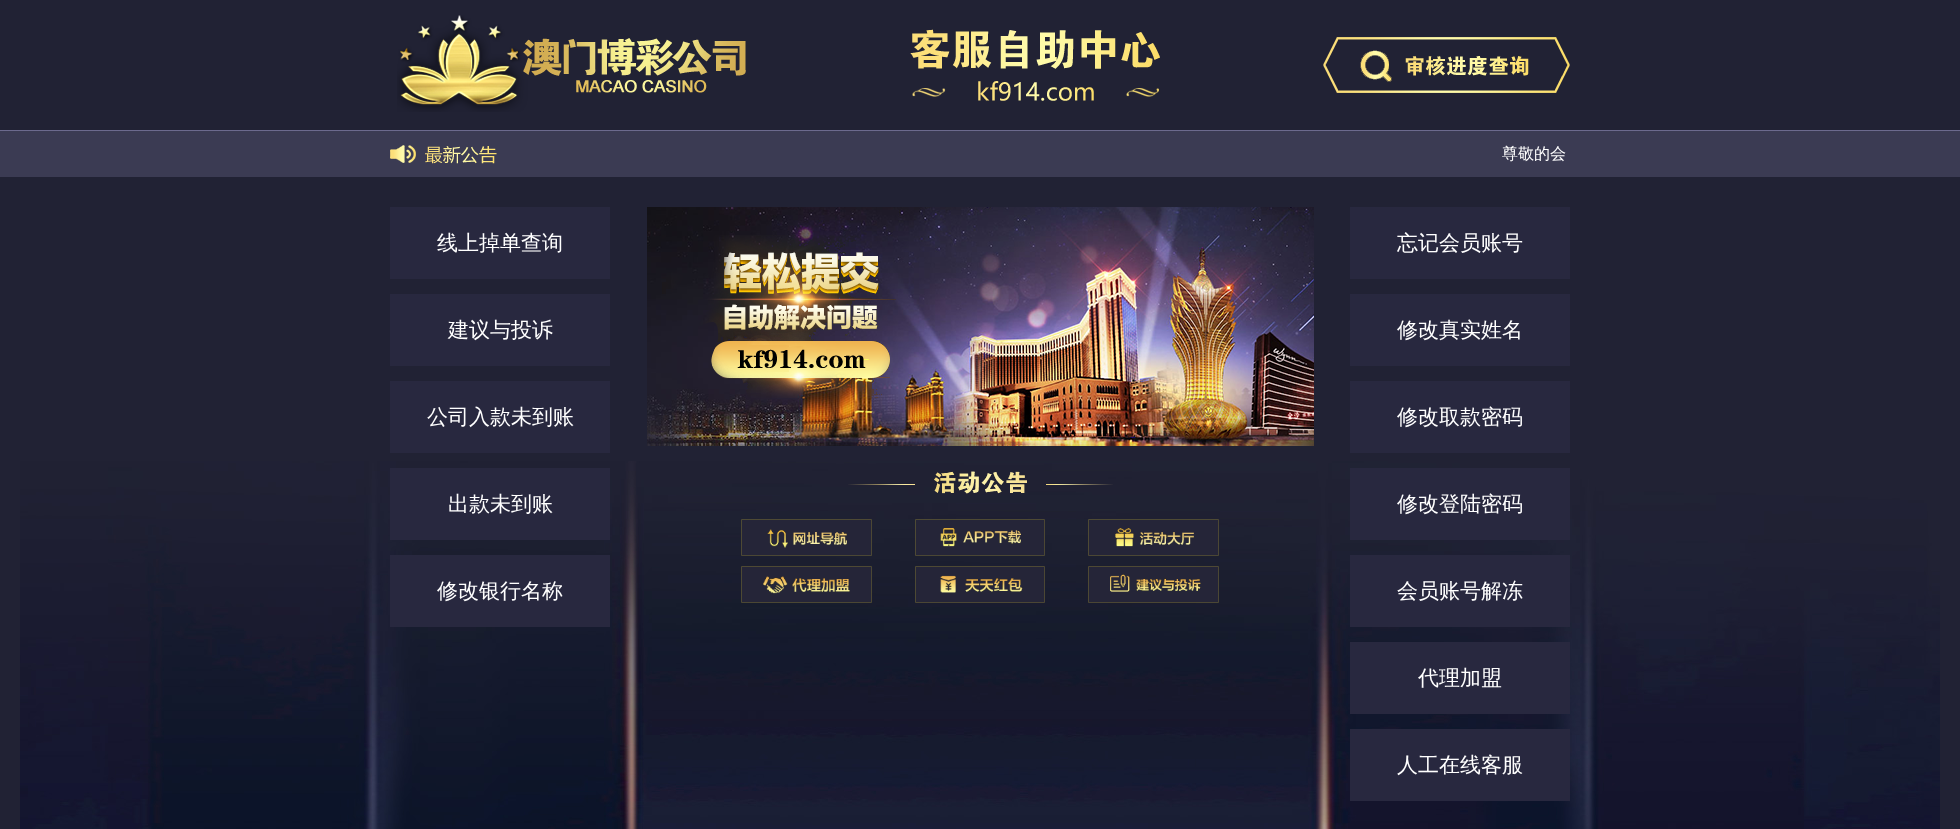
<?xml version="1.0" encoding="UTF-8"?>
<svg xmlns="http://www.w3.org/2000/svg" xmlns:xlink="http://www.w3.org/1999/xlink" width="1960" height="829">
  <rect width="100%" height="100%" fill="#212234" />
  <image x="20" y="461" width="1920" height="368" xlink:href="image1.png" />
  <image x="397" y="15" width="349" height="97" xlink:href="image2.png" />
  <image x="910" y="29" width="250" height="72" xlink:href="image3.png" />
  <image x="1323" y="37" width="247" height="56" xlink:href="image4.png" />
  <rect y="131" width="1960" height="46" fill="#3b3b53" />
  <rect y="130" width="1960" height="1" fill="#6c6a8e" />
  <image x="390" y="145" width="107" height="19" xlink:href="image5.png" />
  <rect x="390" y="207" width="220" height="72" fill="#28283f" />
  <rect x="390" y="294" width="220" height="72" fill="#28283f" />
  <rect x="390" y="381" width="220" height="72" fill="#28283f" />
  <rect x="390" y="468" width="220" height="72" fill="#28283f" />
  <rect x="390" y="555" width="220" height="72" fill="#28283f" />
  <image x="647" y="207" width="667" height="239" xlink:href="image6.png" />
  <image x="848" y="471" width="265" height="23" xlink:href="image7.png" />
  <image x="741" y="519" width="131" height="37" xlink:href="image8.png" />
  <image x="915" y="519" width="130" height="37" xlink:href="image9.png" />
  <image x="1088" y="519" width="131" height="37" xlink:href="image10.png" />
  <image x="741" y="566" width="131" height="37" xlink:href="image11.png" />
  <image x="915" y="566" width="130" height="37" xlink:href="image12.png" />
  <image x="1088" y="566" width="131" height="37" xlink:href="image13.png" />
  <rect x="1350" y="207" width="220" height="72" fill="#28283f" />
  <rect x="1350" y="294" width="220" height="72" fill="#28283f" />
  <rect x="1350" y="381" width="220" height="72" fill="#28283f" />
  <rect x="1350" y="468" width="220" height="72" fill="#28283f" />
  <rect x="1350" y="555" width="220" height="72" fill="#28283f" />
  <rect x="1350" y="642" width="220" height="72" fill="#28283f" />
  <rect x="1350" y="729" width="220" height="72" fill="#28283f" />
  <text x="1502" y="159" style="font-family: WenQuanYi Zen Hei; font-size: 16px; font-weight: 500; fill: #ffffff">尊敬的会</text>
  <text x="437" y="250" style="font-family: WenQuanYi Zen Hei; font-size: 21px; font-weight: 500; fill: #ffffff">线上掉单查询</text>
  <text x="448" y="337" style="font-family: WenQuanYi Zen Hei; font-size: 21px; font-weight: 500; fill: #ffffff">建议与投诉</text>
  <text x="427" y="424" style="font-family: WenQuanYi Zen Hei; font-size: 21px; font-weight: 500; fill: #ffffff">公司入款未到账</text>
  <text x="448" y="511" style="font-family: WenQuanYi Zen Hei; font-size: 21px; font-weight: 500; fill: #ffffff">出款未到账</text>
  <text x="437" y="598" style="font-family: WenQuanYi Zen Hei; font-size: 21px; font-weight: 500; fill: #ffffff">修改银行名称</text>
  <text x="1397" y="250" style="font-family: WenQuanYi Zen Hei; font-size: 21px; font-weight: 500; fill: #ffffff">忘记会员账号</text>
  <text x="1397" y="337" style="font-family: WenQuanYi Zen Hei; font-size: 21px; font-weight: 500; fill: #ffffff">修改真实姓名</text>
  <text x="1397" y="424" style="font-family: WenQuanYi Zen Hei; font-size: 21px; font-weight: 500; fill: #ffffff">修改取款密码</text>
  <text x="1397" y="511" style="font-family: WenQuanYi Zen Hei; font-size: 21px; font-weight: 500; fill: #ffffff">修改登陆密码</text>
  <text x="1397" y="598" style="font-family: WenQuanYi Zen Hei; font-size: 21px; font-weight: 500; fill: #ffffff">会员账号解冻</text>
  <text x="1418" y="685" style="font-family: WenQuanYi Zen Hei; font-size: 21px; font-weight: 500; fill: #ffffff">代理加盟</text>
  <text x="1397" y="772" style="font-family: WenQuanYi Zen Hei; font-size: 21px; font-weight: 500; fill: #ffffff">人工在线客服</text>
</svg>
